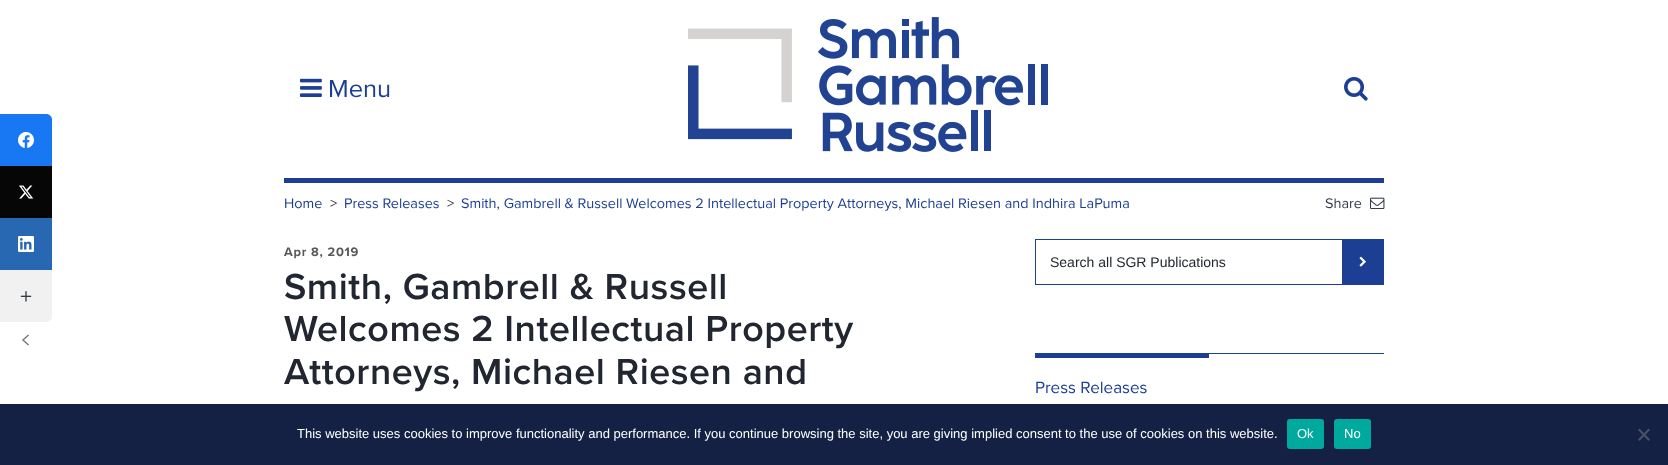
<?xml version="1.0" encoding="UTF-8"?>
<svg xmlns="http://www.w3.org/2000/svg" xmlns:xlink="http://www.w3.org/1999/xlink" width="1668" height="465">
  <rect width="100%" height="100%" fill="#ffffff" />
  <image x="300" y="78" width="22" height="19" xlink:href="image1.png" />
  <image x="688" y="17" width="360" height="135" xlink:href="image2.png" />
  <image x="1344" y="77" width="24" height="24" xlink:href="image3.png" />
  <path d="M 0 114 h 46 c 3.5 0 6 2.5 6 6 v 46 h -52 z" fill="#1877f2" />
  <image x="18" y="132" width="16" height="16" xlink:href="image4.png" />
  <rect y="166" width="52" height="52" fill="#060606" />
  <image x="19" y="185" width="15" height="14" xlink:href="image5.png" />
  <rect y="218" width="52" height="52" fill="#2867b2" />
  <image x="18" y="236" width="16" height="16" xlink:href="image6.png" />
  <path d="M 0 270 h 52 v 46 c 0 3.5 -2.5 6 -6 6 h -46 z" fill="#f1f1f1" />
  <image x="20" y="291" width="12" height="11" xlink:href="image7.png" />
  <path d="M 28.5 335 l -5.5 5 l 5.5 5" fill="none" stroke="#7b7b7b" stroke-width="1.5" />
  <rect x="284" y="178" width="1100" height="5" fill="#1c3f94" />
  <image x="1370" y="197" width="15" height="12" xlink:href="image8.png" />
  <rect x="1035.5" y="239.5" width="348" height="45" fill="none" stroke="#1c3f94" />
  <rect x="1342" y="240" width="41" height="44" fill="#1c3f94" />
  <image x="1359" y="256" width="7" height="11" xlink:href="image9.png" />
  <rect x="1035" y="353" width="174" height="5" fill="#1c3f94" />
  <rect x="1209" y="353" width="175" height="1" fill="#1c3f94" />
  <rect y="404" width="1668" height="61" fill="#142145" />
  <rect x="1287" y="419" width="37" height="30" rx="3" fill="#00a99d" />
  <rect x="1334" y="419" width="37" height="30" rx="3" fill="#00a99d" />
  <path d="M 1648.5 428.5 l 1.5 1.5 l -10.5 11 l -1.5 -1.5 z" fill="#4a5163" />
  <path d="M 1638 430 l 1.5 -1.5 l 10.5 11 l -1.5 1.5 z" fill="#4a5163" />
  <text x="328" y="97" style="font-family: Proxima Nova; font-size: 25.5px; fill: #1c3f94">Menu</text>
  <text x="284" y="208" style="font-family: Proxima Nova; font-size: 14.45px; fill: #1c3f94">Home</text>
  <text x="330" y="208" style="font-family: Proxima Nova; font-size: 14.45px; fill: #2f2f2f">&gt;</text>
  <text x="344" y="208" style="font-family: Proxima Nova; font-size: 14.45px; fill: #1c3f94">Press Releases</text>
  <text x="447" y="208" style="font-family: Proxima Nova; font-size: 14.45px; fill: #2f2f2f">&gt;</text>
  <text x="461" y="208" style="font-family: Proxima Nova; font-size: 14.45px; fill: #1c3f94">Smith, Gambrell &amp; Russell Welcomes 2 Intellectual Property Attorneys, Michael Riesen and Indhira LaPuma</text>
  <text x="1325" y="208" style="font-family: Proxima Nova; font-size: 14.45px; fill: #323a4e">Share</text>
  <text x="284" y="256" style="font-family: Proxima Nova; font-size: 12.75px; font-weight: bold; letter-spacing: 0.75px; fill: #585858">Apr 8, 2019</text>
  <text x="284" y="299" style="font-family: Proxima Nova; font-size: 37.6px; font-weight: 600; letter-spacing: 0.55px; fill: #212630">Smith, Gambrell &amp; Russell</text>
  <text x="284" y="341" style="font-family: Proxima Nova; font-size: 37.6px; font-weight: 600; letter-spacing: 0.55px; fill: #212630">Welcomes 2 Intellectual Property</text>
  <text x="284" y="384" style="font-family: Proxima Nova; font-size: 37.6px; font-weight: 600; letter-spacing: 0.55px; fill: #212630">Attorneys, Michael Riesen and</text>
  <text x="1050" y="267" style="font-family: Liberation Sans; font-size: 14px; fill: #212630">Search all SGR Publications</text>
  <text x="1035" y="393" style="font-family: Proxima Nova; font-size: 17px; fill: #1c3f94">Press Releases</text>
  <text x="297" y="438" style="font-family: Liberation Sans; font-size: 13px; fill: #ffffff">This website uses cookies to improve functionality and performance. If you continue browsing the site, you are giving implied consent to the use of cookies on this website.</text>
  <text x="1297" y="438" style="font-family: Liberation Sans; font-size: 13px; fill: #ffffff">Ok</text>
  <text x="1344" y="438" style="font-family: Liberation Sans; font-size: 13px; fill: #ffffff">No</text>
</svg>
